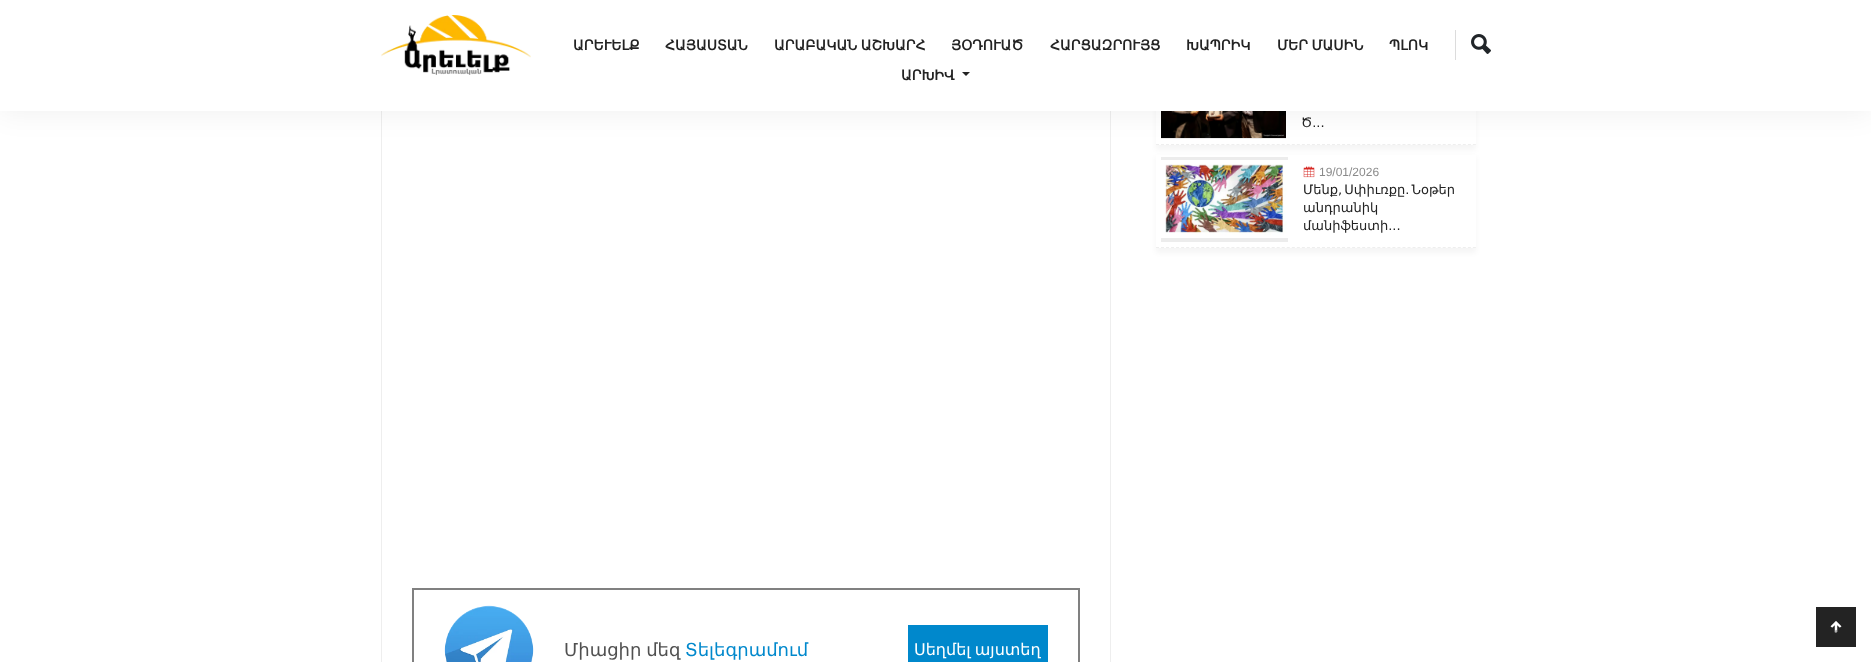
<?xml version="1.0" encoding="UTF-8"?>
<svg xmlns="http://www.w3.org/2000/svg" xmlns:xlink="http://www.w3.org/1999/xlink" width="1871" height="662">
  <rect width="100%" height="100%" fill="#ffffff" />
  <rect x="1156" y="54" width="320" height="96" fill="#000000" fill-opacity="0.04" filter="blur(2.5px)" />
  <rect x="1156" y="111" width="320" height="34" fill="#ffffff" />
  <path d="M 1156 144.5 h 320" fill="none" stroke="#eeeeee" stroke-dasharray="3 2.03" />
  <image x="1161" y="111" width="125" height="27" xlink:href="image3.png" />
  <rect x="1161" y="138" width="125" height="1" fill="#ececec" />
  <rect x="1156" y="157" width="320" height="96" fill="#000000" fill-opacity="0.04" filter="blur(2.5px)" />
  <rect x="1156" y="155" width="320" height="93" fill="#ffffff" />
  <rect x="381.5" y="-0.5" width="729" height="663" fill="none" stroke="#eeeeee" />
  <rect y="2" width="1871" height="111" fill="#000000" fill-opacity="0.06" filter="blur(14px)" />
  <rect width="1871" height="111" fill="#ffffff" />
  <image x="381" y="15" width="150" height="60" xlink:href="image1.png" />
  <rect x="1455" y="30" width="1" height="30" fill="#dcdcdc" />
  <image x="1471" y="34" width="20" height="20" xlink:href="image2.png" />
  <path d="M 962 72 h 8 l -4 4 z" fill="#232323" />
  <path d="M 1156 247.5 h 320" fill="none" stroke="#eeeeee" stroke-dasharray="3 2.03" />
  <rect x="1161" y="157" width="127" height="85" fill="#ececec" />
  <image x="1161" y="160" width="127" height="78" xlink:href="image4.png" />
  <image x="1303" y="166" width="12" height="12" xlink:href="image5.png" />
  <rect x="413" y="589" width="666" height="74" fill="none" stroke="#808080" stroke-width="2" />
  <image x="444" y="605" width="90" height="57" xlink:href="image6.png" />
  <rect x="908" y="625" width="140" height="37" fill="#0088cc" />
  <rect x="1816" y="607" width="40" height="40" fill="#232323" />
  <image x="1830" y="621" width="12" height="12" xlink:href="image7.png" />
  <text x="573" y="50" style="font-family: DejaVu Sans; font-size: 14px; font-weight: bold; fill: #232323">ԱՐԵՒԵԼՔ</text>
  <text x="665" y="50" style="font-family: DejaVu Sans; font-size: 14px; font-weight: bold; fill: #232323">ՀԱՅԱՍՏԱՆ</text>
  <text x="774" y="50" word-spacing="-1" style="font-family: DejaVu Sans; font-size: 14px; font-weight: bold; fill: #232323">ԱՐԱԲԱԿԱՆ ԱՇԽԱՐՀ</text>
  <text x="951" y="50" style="font-family: DejaVu Sans; font-size: 14px; font-weight: bold; fill: #232323">ՅՕԴՈՒԱԾ</text>
  <text x="1050" y="50" style="font-family: DejaVu Sans; font-size: 14px; font-weight: bold; fill: #232323">ՀԱՐՑԱԶՐՈՒՅՑ</text>
  <text x="1186" y="50" style="font-family: DejaVu Sans; font-size: 14px; font-weight: bold; fill: #232323">ԽԱՊՐԻԿ</text>
  <text x="1277" y="50" word-spacing="-1" style="font-family: DejaVu Sans; font-size: 14px; font-weight: bold; fill: #232323">ՄԵՐ ՄԱՍԻՆ</text>
  <text x="1389" y="50" style="font-family: DejaVu Sans; font-size: 14px; font-weight: bold; fill: #232323">ՊԼՈԿ</text>
  <text x="901" y="80" style="font-family: DejaVu Sans; font-size: 14px; font-weight: bold; fill: #232323">ԱՐԽԻՎ</text>
  <text x="1301" y="127" style="font-family: DejaVu Sans; font-size: 13px; fill: #232323">Ծ...</text>
  <text x="1319" y="176" style="font-family: Arimo; font-size: 12px; fill: #8a8a8a">19/01/2026</text>
  <text x="1303" y="194" word-spacing="-2" style="font-family: DejaVu Sans; font-size: 13px; fill: #232323">Մենք, Սփիւռքը. Նօթեր</text>
  <text x="1303" y="212" style="font-family: DejaVu Sans; font-size: 13px; fill: #232323">անդրանիկ</text>
  <text x="1303" y="230" style="font-family: DejaVu Sans; font-size: 13px; fill: #232323">մանիֆեստի...</text>
  <text x="564" y="656" word-spacing="-1" style="font-family: DejaVu Sans; font-size: 18px; fill: #505050">Միացիր մեզ</text>
  <text x="685" y="656" style="font-family: DejaVu Sans; font-size: 18px; fill: #0088cc">Տելեգրամում</text>
  <text x="914" y="655" word-spacing="-1" style="font-family: DejaVu Sans; font-size: 16px; fill: #ffffff">Սեղմել այստեղ</text>
</svg>
